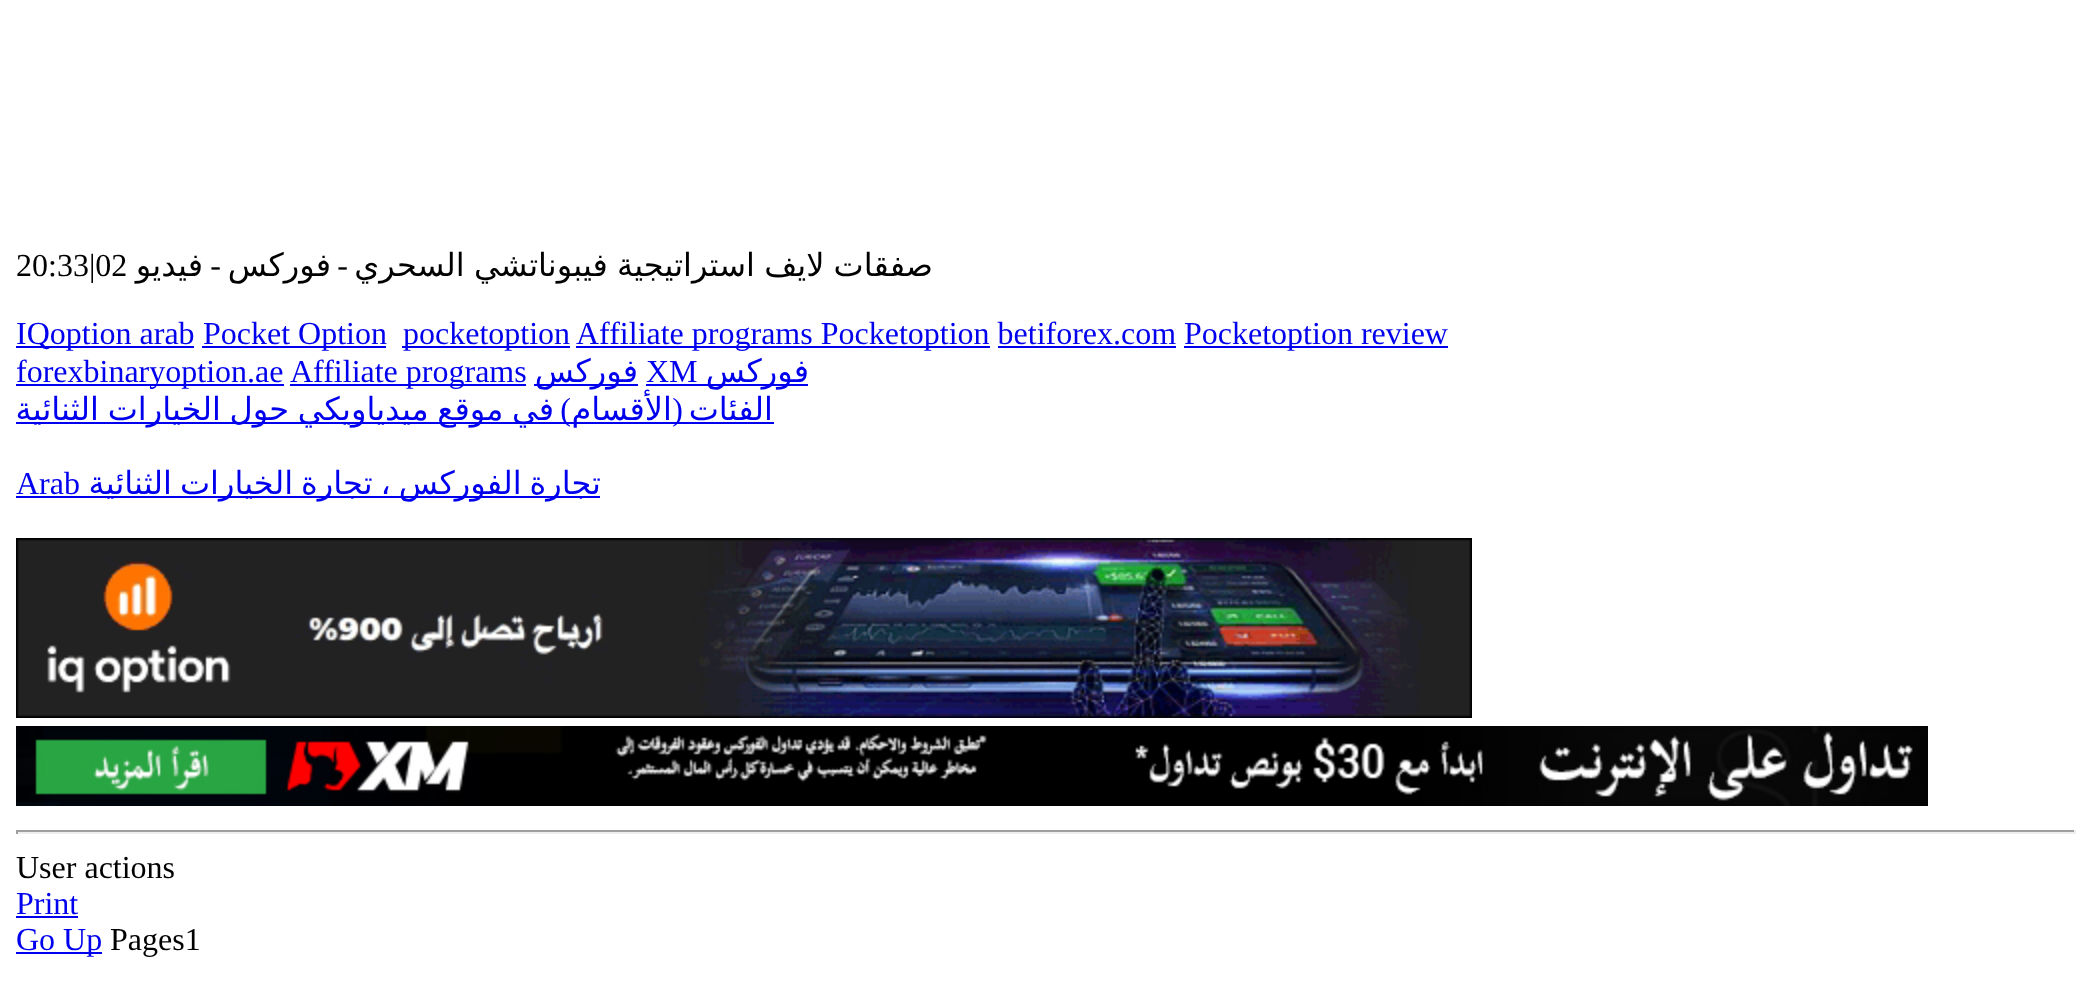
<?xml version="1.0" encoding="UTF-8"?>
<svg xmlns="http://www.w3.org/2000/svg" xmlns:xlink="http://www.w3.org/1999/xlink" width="2092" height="987">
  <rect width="100%" height="100%" fill="#ffffff" />
  <rect x="16" y="346" width="178" height="2" fill="#0000ee" />
  <rect x="202" y="346" width="184" height="2" fill="#0000ee" />
  <rect x="402" y="346" width="168" height="2" fill="#0000ee" />
  <rect x="576" y="346" width="414" height="2" fill="#0000ee" />
  <rect x="1184" y="346" width="264" height="2" fill="#0000ee" />
  <rect x="998" y="346" width="178" height="2" fill="#0000ee" />
  <rect x="16" y="384" width="268" height="2" fill="#0000ee" />
  <rect x="290" y="384" width="236" height="2" fill="#0000ee" />
  <rect x="534" y="384" width="104" height="2" fill="#0000ee" />
  <rect x="646" y="384" width="162" height="2" fill="#0000ee" />
  <rect x="16" y="422" width="758" height="2" fill="#0000ee" />
  <rect x="16" y="496" width="584" height="2" fill="#0000ee" />
  <image x="16" y="538" width="1456" height="180" xlink:href="image1.png" />
  <image x="16" y="726" width="1912" height="80" xlink:href="image2.png" />
  <rect x="16" y="830" width="2060" height="2" fill="#9f9f9f" />
  <rect x="2074" y="830" width="2" height="4" fill="#eeeeee" />
  <rect x="16" y="832" width="2060" height="2" fill="#eeeeee" />
  <rect x="16" y="830" width="2" height="4" fill="#9f9f9f" />
  <rect x="16" y="916" width="62" height="2" fill="#0000ee" />
  <rect x="16" y="952" width="86" height="2" fill="#0000ee" />
  <text x="16" y="276" style="font-family: Liberation Serif; font-size: 32px; fill: #000000">20:33|02</text>
  <text x="203" y="276" style="font-family: DejaVu Sans; font-size: 32px; direction: rtl; fill: #000000">فيديو</text>
  <text x="221" y="276" style="font-family: Liberation Serif; font-size: 32px; direction: rtl; fill: #000000">-</text>
  <text x="331" y="276" style="font-family: DejaVu Sans; font-size: 32px; direction: rtl; fill: #000000">فوركس</text>
  <text x="348" y="276" style="font-family: Liberation Serif; font-size: 32px; direction: rtl; fill: #000000">-</text>
  <text x="933" y="276" word-spacing="-1" style="font-family: DejaVu Sans; font-size: 32px; direction: rtl; fill: #000000">صفقات لايف استراتيجية فيبوناتشي السحري</text>
  <text x="16" y="344" style="font-family: Liberation Serif; font-size: 32px; fill: #0000ee">IQoption arab</text>
  <text x="203" y="344" style="font-family: Liberation Serif; font-size: 32px; fill: #0000ee">Pocket Option</text>
  <text x="403" y="344" style="font-family: Liberation Serif; font-size: 32px; fill: #0000ee">pocketoption</text>
  <text x="576" y="344" style="font-family: Liberation Serif; font-size: 32px; fill: #0000ee">Affiliate programs Pocketoption betiforex.com</text>
  <text x="1184" y="344" style="font-family: Liberation Serif; font-size: 32px; fill: #0000ee">Pocketoption review</text>
  <text x="16" y="382" style="font-family: Liberation Serif; font-size: 32px; fill: #0000ee">forexbinaryoption.ae</text>
  <text x="290" y="382" style="font-family: Liberation Serif; font-size: 32px; fill: #0000ee">Affiliate programs</text>
  <text x="638" y="382" style="font-family: DejaVu Sans; font-size: 32px; direction: rtl; fill: #0000ee">فوركس</text>
  <text x="646" y="382" style="font-family: Liberation Serif; font-size: 32px; fill: #0000ee">XM</text>
  <text x="809" y="382" style="font-family: DejaVu Sans; font-size: 32px; direction: rtl; fill: #0000ee">فوركس</text>
  <text x="554" y="420" word-spacing="-1.5" style="font-family: DejaVu Sans; font-size: 32px; direction: rtl; fill: #0000ee">في موقع ميدياويكي حول الخيارات الثنائية</text>
  <text x="571" y="420" style="font-family: Liberation Serif; font-size: 32px; direction: rtl; fill: #0000ee">)</text>
  <text x="672" y="420" style="font-family: DejaVu Sans; font-size: 32px; direction: rtl; fill: #0000ee">الأقسام</text>
  <text x="683" y="420" style="font-family: Liberation Serif; font-size: 32px; direction: rtl; fill: #0000ee">(</text>
  <text x="773" y="420" style="font-family: DejaVu Sans; font-size: 32px; direction: rtl; fill: #0000ee">الفئات</text>
  <text x="16" y="494" style="font-family: Liberation Serif; font-size: 32px; fill: #0000ee">Arab</text>
  <text x="601" y="494" word-spacing="-2.25" style="font-family: DejaVu Sans; font-size: 32px; direction: rtl; fill: #0000ee">تجارة الفوركس ، تجارة الخيارات الثنائية</text>
  <text x="16" y="878" style="font-family: Liberation Serif; font-size: 32px; fill: #000000">User actions</text>
  <text x="16" y="914" style="font-family: Liberation Serif; font-size: 32px; fill: #0000ee">Print</text>
  <text x="16" y="950" style="font-family: Liberation Serif; font-size: 32px; fill: #0000ee">Go Up</text>
  <text x="110" y="950" style="font-family: Liberation Serif; font-size: 32px; fill: #000000">Pages1</text>
</svg>
